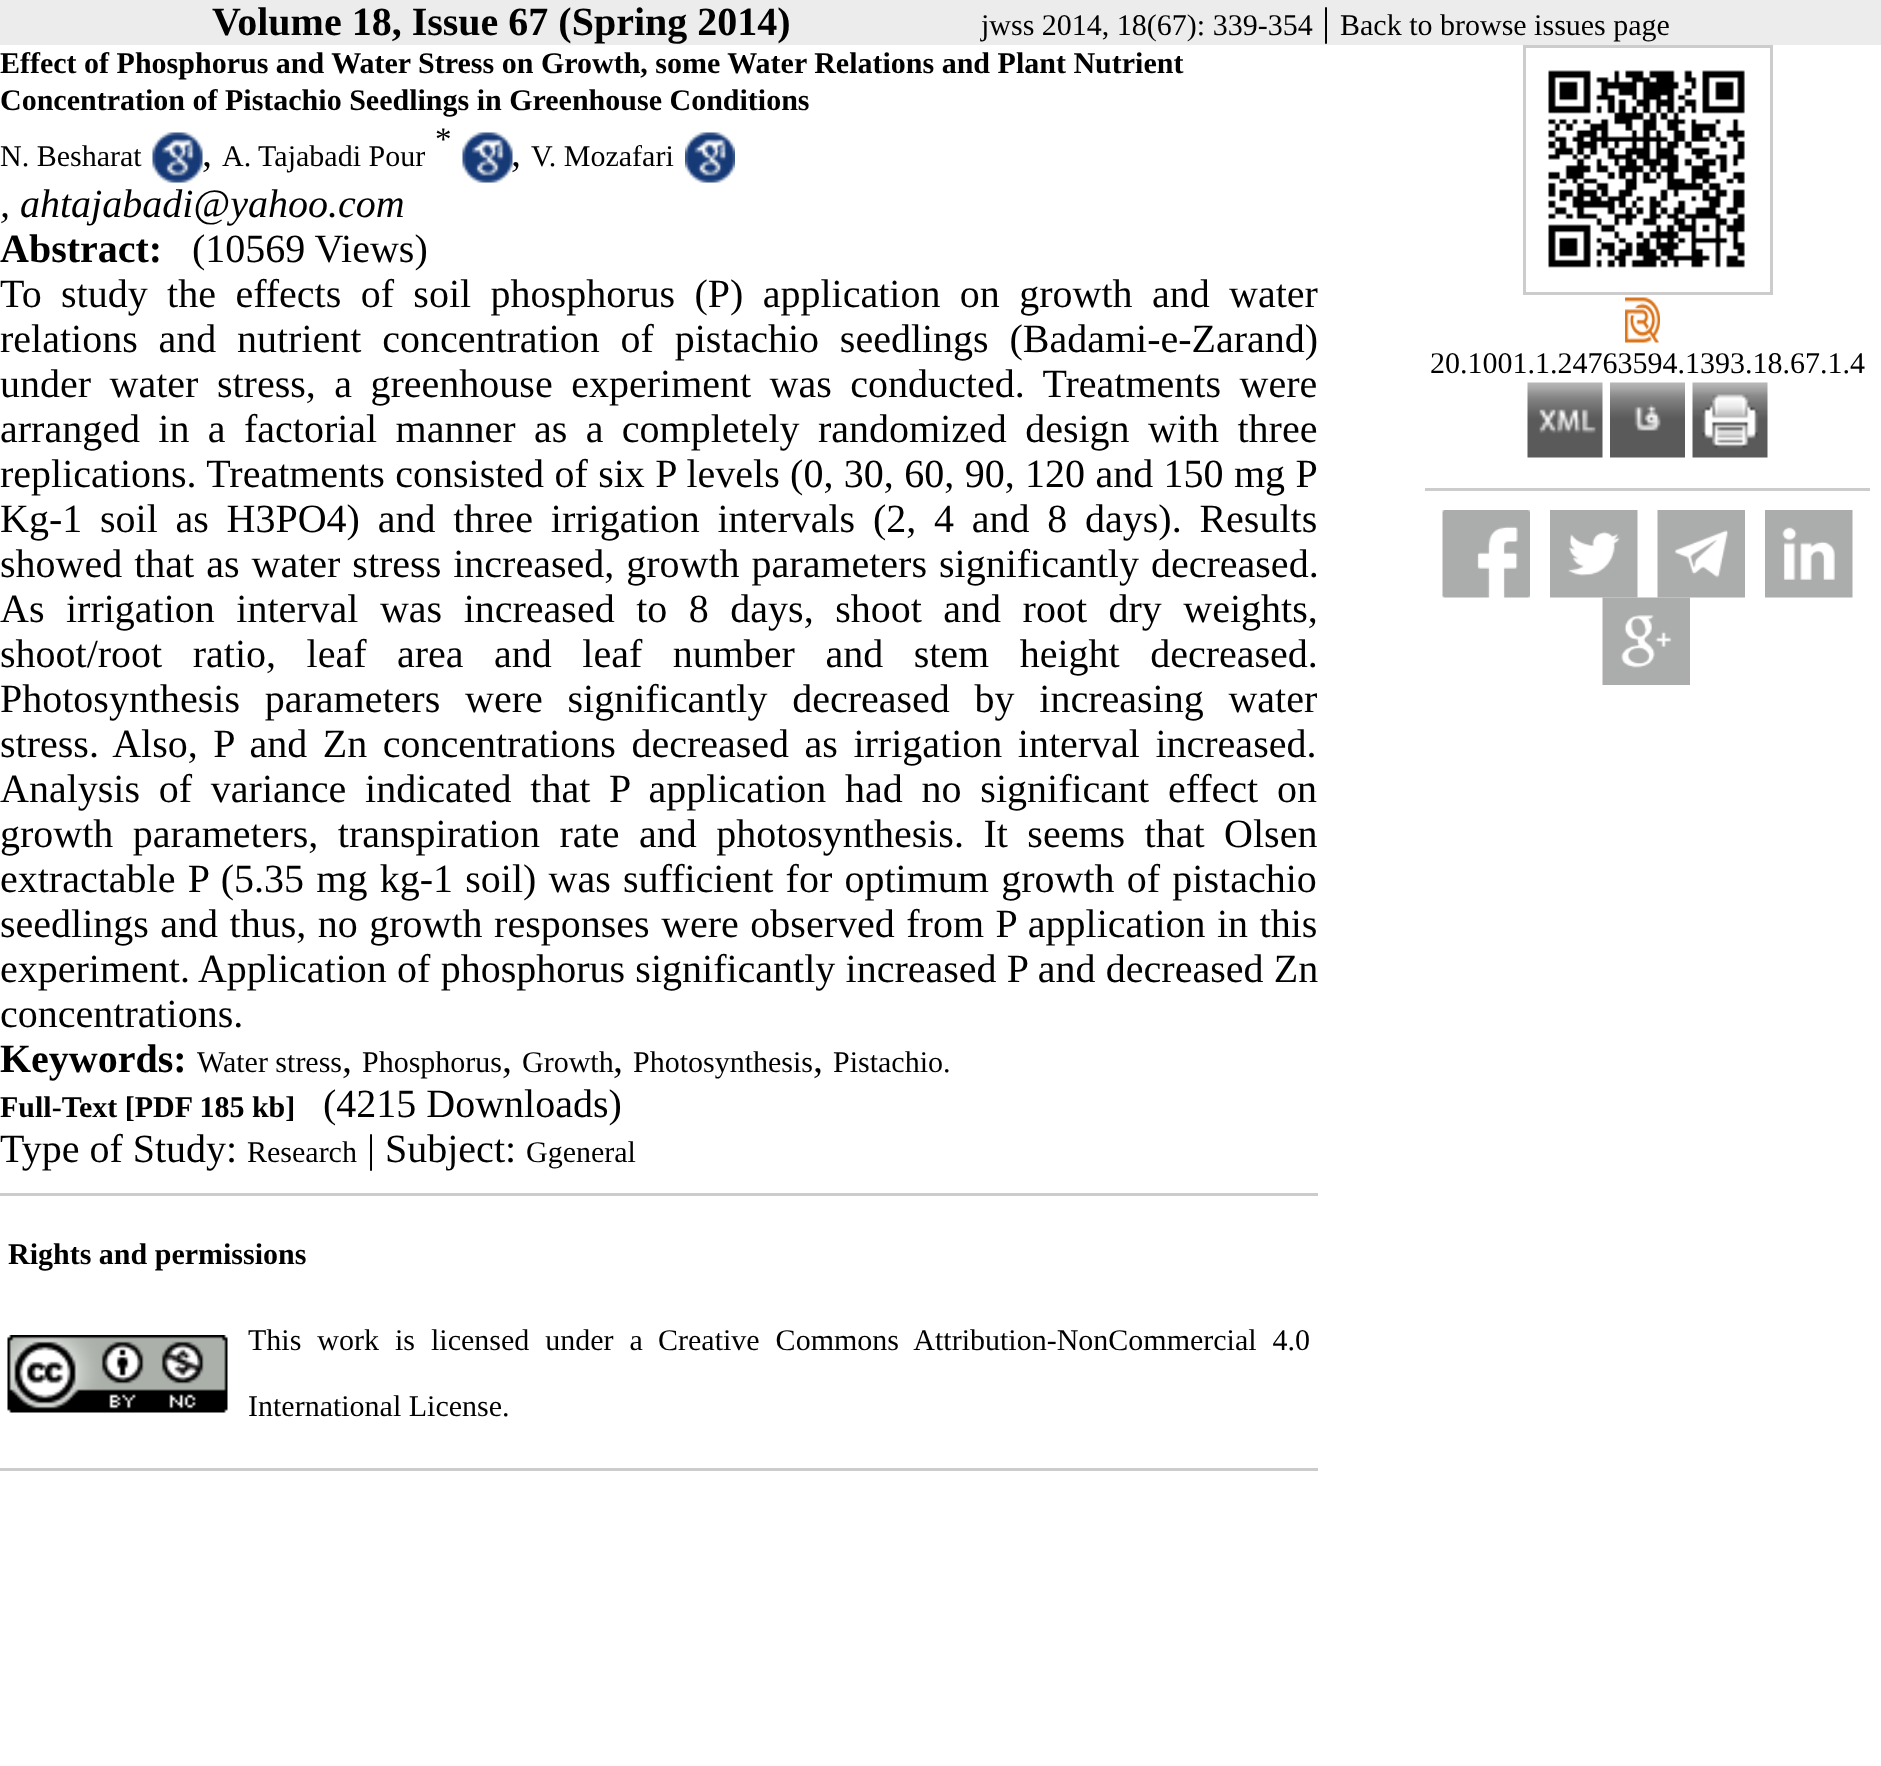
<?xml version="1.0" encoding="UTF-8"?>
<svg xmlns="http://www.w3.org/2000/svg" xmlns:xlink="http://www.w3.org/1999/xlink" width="1881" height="1766">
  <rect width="100%" height="100%" fill="#ffffff" />
  <rect width="1881" height="45" fill="#edecec" />
  <image x="152" y="132" width="51" height="51" xlink:href="image1.png" />
  <image x="462" y="132" width="51" height="51" xlink:href="image1.png" />
  <image x="685" y="132" width="50" height="51" xlink:href="image2.png" />
  <rect y="1193" width="1318" height="3" fill="#cccccc" />
  <image x="7" y="1335" width="221" height="78" xlink:href="image3.png" />
  <rect y="1468" width="1318" height="3" fill="#cccccc" />
  <rect x="1524.5" y="46.5" width="247" height="247" fill="none" stroke="#cccccc" stroke-width="3" />
  <image x="1548" y="70" width="197" height="198" xlink:href="image4.png" />
  <image x="1625" y="297" width="35" height="46" xlink:href="image5.png" />
  <image x="1527" y="382" width="76" height="76" xlink:href="image6.png" />
  <image x="1610" y="382" width="75" height="76" xlink:href="image7.png" />
  <image x="1692" y="382" width="76" height="76" xlink:href="image8.png" />
  <rect x="1425" y="488" width="445" height="3" fill="#cccccc" />
  <image x="1442" y="510" width="88" height="88" xlink:href="image9.png" />
  <image x="1550" y="510" width="88" height="88" xlink:href="image10.png" />
  <image x="1657" y="510" width="88" height="88" xlink:href="image11.png" />
  <image x="1765" y="510" width="88" height="88" xlink:href="image12.png" />
  <image x="1602" y="597" width="88" height="88" xlink:href="image13.png" />
  <text x="212" y="35" style="font-family: Liberation Serif; font-size: 40px; font-weight: bold; fill: #000000">Volume 18, Issue 67 (Spring 2014)</text>
  <text x="981" y="35" style="font-family: Liberation Serif; font-size: 30px; fill: #000000">jwss 2014, 18(67): 339-354</text>
  <text x="1322" y="35" style="font-family: Liberation Serif; font-size: 40px; fill: #000000">|</text>
  <text x="1340" y="35" style="font-family: Liberation Serif; font-size: 30px; fill: #000000">Back to browse issues page</text>
  <text x="0" y="73" style="font-family: Liberation Serif; font-size: 30px; font-weight: bold; fill: #000000">Effect of Phosphorus and Water Stress on Growth, some Water Relations and Plant Nutrient</text>
  <text x="0" y="110" style="font-family: Liberation Serif; font-size: 30px; font-weight: bold; fill: #000000">Concentration of Pistachio Seedlings in Greenhouse Conditions</text>
  <text x="0" y="166" style="font-family: Liberation Serif; font-size: 30px; fill: #000000">N. Besharat</text>
  <text x="202" y="166" style="font-family: Liberation Serif; font-size: 40px; fill: #000000">,</text>
  <text x="222" y="166" style="font-family: Liberation Serif; font-size: 30px; fill: #000000">A. Tajabadi Pour</text>
  <text x="435" y="150" style="font-family: Liberation Serif; font-size: 33px; fill: #000000">*</text>
  <text x="511" y="166" style="font-family: Liberation Serif; font-size: 40px; fill: #000000">,</text>
  <text x="531" y="166" style="font-family: Liberation Serif; font-size: 30px; fill: #000000">V. Mozafari</text>
  <text x="0" y="217" style="font-family: Liberation Serif; font-size: 40px; font-style: italic; fill: #000000">, ahtajabadi@yahoo.com</text>
  <text x="0" y="262" style="font-family: Liberation Serif; font-size: 40px; font-weight: bold; fill: #000000">Abstract:</text>
  <text x="192" y="262" style="font-family: Liberation Serif; font-size: 40px; fill: #000000">(10569 Views)</text>
  <text x="0" y="307" word-spacing="9.4" style="font-family: Liberation Serif; font-size: 40px; fill: #000000">To study the effects of soil phosphorus (P) application on growth and water</text>
  <text x="0" y="352" word-spacing="10.75" style="font-family: Liberation Serif; font-size: 40px; fill: #000000">relations and nutrient concentration of pistachio seedlings (Badami-e-Zarand)</text>
  <text x="0" y="397" word-spacing="8.5" style="font-family: Liberation Serif; font-size: 40px; fill: #000000">under water stress, a greenhouse experiment was conducted. Treatments were</text>
  <text x="0" y="442" word-spacing="8.4" style="font-family: Liberation Serif; font-size: 40px; fill: #000000">arranged in a factorial manner as a completely randomized design with three</text>
  <text x="0" y="487" word-spacing="0.4" style="font-family: Liberation Serif; font-size: 40px; fill: #000000">replications. Treatments consisted of six P levels (0, 30, 60, 90, 120 and 150 mg P</text>
  <text x="0" y="532" word-spacing="7.75" style="font-family: Liberation Serif; font-size: 40px; fill: #000000">Kg-1 soil as H3PO4) and three irrigation intervals (2, 4 and 8 days). Results</text>
  <text x="0" y="577" word-spacing="2" style="font-family: Liberation Serif; font-size: 40px; fill: #000000">showed that as water stress increased, growth parameters significantly decreased.</text>
  <text x="0" y="622" word-spacing="11.5" style="font-family: Liberation Serif; font-size: 40px; fill: #000000">As irrigation interval was increased to 8 days, shoot and root dry weights,</text>
  <text x="0" y="667" word-spacing="20.5" style="font-family: Liberation Serif; font-size: 40px; fill: #000000">shoot/root ratio, leaf area and leaf number and stem height decreased.</text>
  <text x="0" y="712" word-spacing="14.75" style="font-family: Liberation Serif; font-size: 40px; fill: #000000">Photosynthesis parameters were significantly decreased by increasing water</text>
  <text x="0" y="757" word-spacing="5.5" style="font-family: Liberation Serif; font-size: 40px; fill: #000000">stress. Also, P and Zn concentrations decreased as irrigation interval increased.</text>
  <text x="0" y="802" word-spacing="8.75" style="font-family: Liberation Serif; font-size: 40px; fill: #000000">Analysis of variance indicated that P application had no significant effect on</text>
  <text x="0" y="847" word-spacing="9.5" style="font-family: Liberation Serif; font-size: 40px; fill: #000000">growth parameters, transpiration rate and photosynthesis. It seems that Olsen</text>
  <text x="0" y="892" word-spacing="2.25" style="font-family: Liberation Serif; font-size: 40px; fill: #000000">extractable P (5.35 mg kg-1 soil) was sufficient for optimum growth of pistachio</text>
  <text x="0" y="937" word-spacing="1.5" style="font-family: Liberation Serif; font-size: 40px; fill: #000000">seedlings and thus, no growth responses were observed from P application in this</text>
  <text x="0" y="982" word-spacing="0.25" style="font-family: Liberation Serif; font-size: 40px; fill: #000000">experiment. Application of phosphorus significantly increased P and decreased Zn</text>
  <text x="0" y="1027" style="font-family: Liberation Serif; font-size: 40px; fill: #000000">concentrations.</text>
  <text x="0" y="1072" style="font-family: Liberation Serif; font-size: 40px; font-weight: bold; fill: #000000">Keywords:</text>
  <text x="197" y="1072" style="font-family: Liberation Serif; font-size: 30px; fill: #000000">Water stress</text>
  <text x="342" y="1072" style="font-family: Liberation Serif; font-size: 40px; fill: #000000">,</text>
  <text x="362" y="1072" style="font-family: Liberation Serif; font-size: 30px; fill: #000000">Phosphorus</text>
  <text x="502" y="1072" style="font-family: Liberation Serif; font-size: 40px; fill: #000000">,</text>
  <text x="522" y="1072" style="font-family: Liberation Serif; font-size: 30px; fill: #000000">Growth</text>
  <text x="613" y="1072" style="font-family: Liberation Serif; font-size: 40px; fill: #000000">,</text>
  <text x="633" y="1072" style="font-family: Liberation Serif; font-size: 30px; fill: #000000">Photosynthesis</text>
  <text x="813" y="1072" style="font-family: Liberation Serif; font-size: 40px; fill: #000000">,</text>
  <text x="833" y="1072" style="font-family: Liberation Serif; font-size: 30px; fill: #000000">Pistachio.</text>
  <text x="0" y="1117" style="font-family: Liberation Serif; font-size: 30px; font-weight: bold; fill: #000000">Full-Text [PDF 185 kb]</text>
  <text x="323" y="1117" style="font-family: Liberation Serif; font-size: 40px; fill: #000000">(4215 Downloads)</text>
  <text x="0" y="1162" style="font-family: Liberation Serif; font-size: 40px; fill: #000000">Type of Study:</text>
  <text x="247" y="1162" style="font-family: Liberation Serif; font-size: 30px; fill: #000000">Research</text>
  <text x="367" y="1162" style="font-family: Liberation Serif; font-size: 40px; fill: #000000">| Subject:</text>
  <text x="526" y="1162" style="font-family: Liberation Serif; font-size: 30px; fill: #000000">Ggeneral</text>
  <text x="8" y="1264" style="font-family: Liberation Serif; font-size: 30px; font-weight: bold; fill: #000000">Rights and permissions</text>
  <text x="248" y="1350" word-spacing="8.5" style="font-family: Liberation Serif; font-size: 30px; fill: #000000">This work is licensed under a</text>
  <text x="658" y="1350" word-spacing="8.5" style="font-family: Liberation Serif; font-size: 30px; fill: #000000">Creative Commons Attribution-NonCommercial 4.0</text>
  <text x="248" y="1416" style="font-family: Liberation Serif; font-size: 30px; fill: #000000">International License.</text>
  <text x="1430" y="373" style="font-family: Liberation Serif; font-size: 30px; fill: #000000">20.1001.1.24763594.1393.18.67.1.4</text>
</svg>
